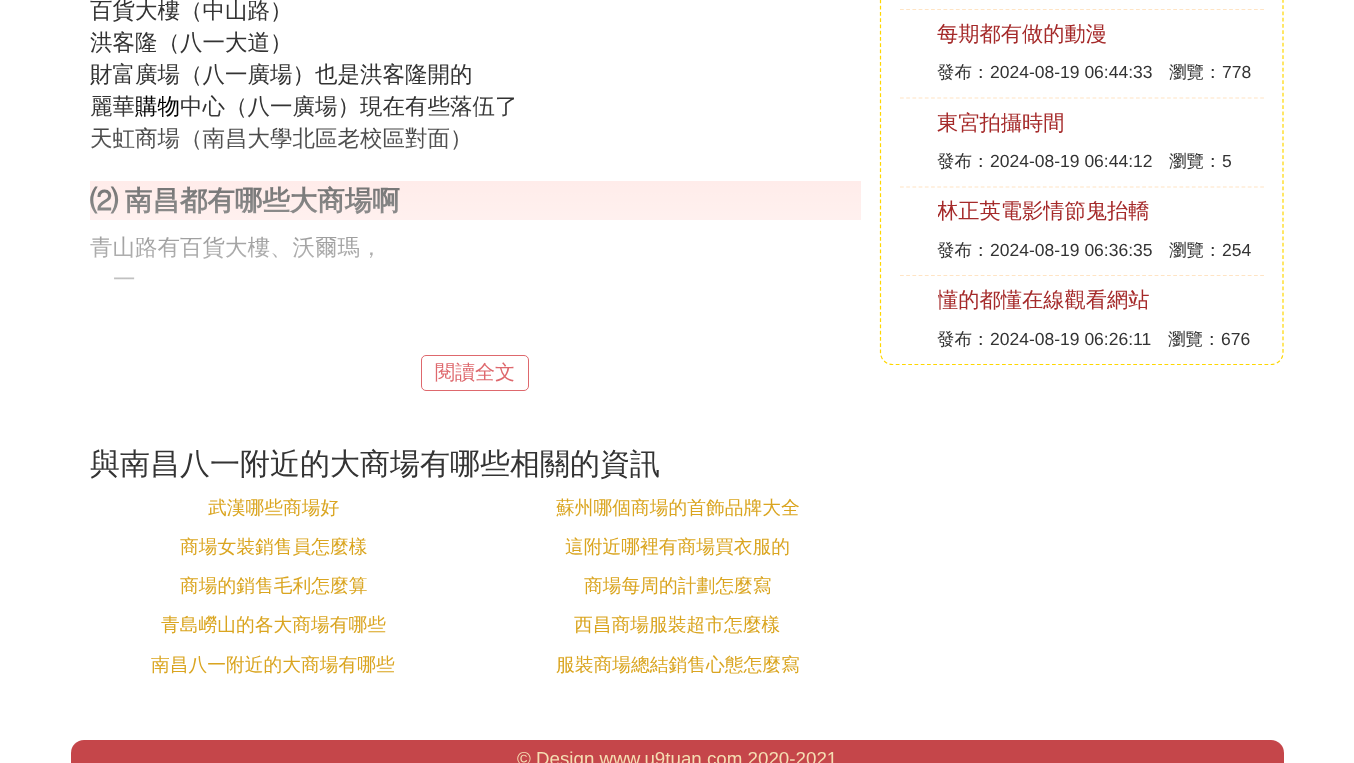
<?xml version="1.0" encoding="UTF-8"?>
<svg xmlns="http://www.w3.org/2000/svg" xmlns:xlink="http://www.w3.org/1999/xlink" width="1354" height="763">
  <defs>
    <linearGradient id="g1" gradientUnits="userSpaceOnUse" x1="90" y1="105" x2="90" y2="355"><stop offset="0" stop-color="#ffffff" stop-opacity="0" /><stop offset="1" stop-color="#ffffff" /></linearGradient>
    <clipPath id="clip1"><rect x="938" y="200" width="313" height="25" /></clipPath>
    <clipPath id="clip2"><rect x="938" y="289" width="313" height="25" /></clipPath>
  </defs>
  <rect width="100%" height="100%" fill="#ffffff" />
  <rect x="90" y="181" width="771" height="39" fill="#ffe4e1" />
  <rect x="421.5" y="355.5" width="107" height="35" rx="4.5" fill="none" stroke="#de686d" />
  <path d="M 892.5 -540.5 h 378.5 c 7 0 12 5 12 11.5 v 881.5 c 0 6.5 -5 12 -12 12 h -378.5 c -6.5 0 -12 -5.5 -12 -12 v -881.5 c 0 -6.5 5.5 -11.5 12 -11.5 z" fill="none" stroke="#ffd700" stroke-width="1.2" stroke-dasharray="3.75 2.5" />
  <path d="M 900 9.5 h 364" fill="none" stroke="#ffe4c4" stroke-width="1.2" stroke-dasharray="3.75 2.46" />
  <path d="M 900 98 h 364" fill="none" stroke="#ffe4c4" stroke-width="1.2" stroke-dasharray="3.75 2.46" />
  <path d="M 900 187 h 364" fill="none" stroke="#ffe4c4" stroke-width="1.2" stroke-dasharray="3.75 2.46" />
  <path d="M 900 275.5 h 364" fill="none" stroke="#ffe4c4" stroke-width="1.2" stroke-dasharray="3.75 2.46" />
  <rect x="71" y="740" width="1213" height="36" rx="13" fill="#c5464a" />
  <text x="90" y="18" style="font-family: WenQuanYi Zen Hei; font-size: 22.5px; font-weight: 500; fill: #333333">百貨大樓（中山路）</text>
  <text x="90" y="50" style="font-family: WenQuanYi Zen Hei; font-size: 22.5px; font-weight: 500; fill: #333333">洪客隆（八一大道）</text>
  <text x="90" y="82" style="font-family: WenQuanYi Zen Hei; font-size: 22.5px; font-weight: 500; fill: #333333">財富廣場（八一廣場）也是洪客隆開的</text>
  <text x="90" y="114" style="font-family: WenQuanYi Zen Hei; font-size: 22.5px; font-weight: 500; fill: #333333">麗華</text>
  <text x="135" y="114" style="font-family: WenQuanYi Zen Hei; font-size: 22.5px; font-weight: 500; fill: #000000">購物</text>
  <text x="180" y="114" style="font-family: WenQuanYi Zen Hei; font-size: 22.5px; font-weight: 500; fill: #333333">中心（八一廣場）現在有些落伍了</text>
  <text x="90" y="146" style="font-family: WenQuanYi Zen Hei; font-size: 22.5px; font-weight: 500; fill: #333333">天虹商場（南昌大學北區老校區對面）</text>
  <text x="90" y="210" word-spacing="-1" style="font-family: WenQuanYi Zen Hei; font-size: 27.5px; font-weight: bold; fill: #333333">⑵ 南昌都有哪些大商場啊</text>
  <text x="90" y="255" style="font-family: WenQuanYi Zen Hei; font-size: 22.5px; font-weight: 500; fill: #333333">青山路有百貨大樓、沃爾瑪，</text>
  <text x="113" y="287" style="font-family: WenQuanYi Zen Hei; font-size: 22.5px; font-weight: 500; fill: #333333">一</text>
  <rect x="90" y="110" width="771" height="170" fill="url(#g1)" />
  <text x="435" y="379" style="font-family: WenQuanYi Zen Hei; font-size: 20px; font-weight: 500; fill: #de686d">閱讀全文</text>
  <text x="90" y="474" style="font-family: WenQuanYi Zen Hei; font-size: 30px; font-weight: 500; fill: #333333">與南昌八一附近的大商場有哪些相關的資訊</text>
  <text x="208" y="514" style="font-family: WenQuanYi Zen Hei; font-size: 18.75px; font-weight: 500; fill: #daa520">武漢哪些商場好</text>
  <text x="556" y="514" style="font-family: WenQuanYi Zen Hei; font-size: 18.75px; font-weight: 500; fill: #daa520">蘇州哪個商場的首飾品牌大全</text>
  <text x="180" y="553" style="font-family: WenQuanYi Zen Hei; font-size: 18.75px; font-weight: 500; fill: #daa520">商場女裝銷售員怎麼樣</text>
  <text x="565" y="553" style="font-family: WenQuanYi Zen Hei; font-size: 18.75px; font-weight: 500; fill: #daa520">這附近哪裡有商場買衣服的</text>
  <text x="180" y="592" style="font-family: WenQuanYi Zen Hei; font-size: 18.75px; font-weight: 500; fill: #daa520">商場的銷售毛利怎麼算</text>
  <text x="584" y="592" style="font-family: WenQuanYi Zen Hei; font-size: 18.75px; font-weight: 500; fill: #daa520">商場每周的計劃怎麼寫</text>
  <text x="161" y="631" style="font-family: WenQuanYi Zen Hei; font-size: 18.75px; font-weight: 500; fill: #daa520">青島嶗山的各大商場有哪些</text>
  <text x="574" y="631" style="font-family: WenQuanYi Zen Hei; font-size: 18.75px; font-weight: 500; fill: #daa520">西昌商場服裝超市怎麼樣</text>
  <text x="151" y="671" style="font-family: WenQuanYi Zen Hei; font-size: 18.75px; font-weight: 500; fill: #daa520">南昌八一附近的大商場有哪些</text>
  <text x="556" y="671" style="font-family: WenQuanYi Zen Hei; font-size: 18.75px; font-weight: 500; fill: #daa520">服裝商場總結銷售心態怎麼寫</text>
  <text x="937" y="41" style="font-family: WenQuanYi Zen Hei; font-size: 21.25px; font-weight: 500; fill: #a52a2a">每期都有做的動漫</text>
  <text x="937" y="78" style="font-family: WenQuanYi Zen Hei; font-size: 17.5px; font-weight: 500; fill: #333333">發布：</text>
  <text x="990" y="78" style="font-family: Liberation Sans; font-size: 17.5px; fill: #333333">2024-08-19 06:44:33</text>
  <text x="1169" y="78" style="font-family: WenQuanYi Zen Hei; font-size: 17.5px; font-weight: 500; fill: #333333">瀏覽：</text>
  <text x="1222" y="78" style="font-family: Liberation Sans; font-size: 17.5px; fill: #333333">778</text>
  <text x="937" y="130" style="font-family: WenQuanYi Zen Hei; font-size: 21.25px; font-weight: 500; fill: #a52a2a">東宮拍攝時間</text>
  <text x="937" y="167" style="font-family: WenQuanYi Zen Hei; font-size: 17.5px; font-weight: 500; fill: #333333">發布：</text>
  <text x="990" y="167" style="font-family: Liberation Sans; font-size: 17.5px; fill: #333333">2024-08-19 06:44:12</text>
  <text x="1169" y="167" style="font-family: WenQuanYi Zen Hei; font-size: 17.5px; font-weight: 500; fill: #333333">瀏覽：</text>
  <text x="1222" y="167" style="font-family: Liberation Sans; font-size: 17.5px; fill: #333333">5</text>
  <g clip-path="url(#clip1)">
    <text x="937" y="218" style="font-family: WenQuanYi Zen Hei; font-size: 21.25px; font-weight: 500; fill: #a52a2a">林正英電影情節鬼抬轎</text>
  </g>
  <text x="937" y="256" style="font-family: WenQuanYi Zen Hei; font-size: 17.5px; font-weight: 500; fill: #333333">發布：</text>
  <text x="990" y="256" style="font-family: Liberation Sans; font-size: 17.5px; fill: #333333">2024-08-19 06:36:35</text>
  <text x="1169" y="256" style="font-family: WenQuanYi Zen Hei; font-size: 17.5px; font-weight: 500; fill: #333333">瀏覽：</text>
  <text x="1222" y="256" style="font-family: Liberation Sans; font-size: 17.5px; fill: #333333">254</text>
  <g clip-path="url(#clip2)">
    <text x="937" y="307" style="font-family: WenQuanYi Zen Hei; font-size: 21.25px; font-weight: 500; fill: #a52a2a">懂的都懂在線觀看網站</text>
  </g>
  <text x="937" y="345" style="font-family: WenQuanYi Zen Hei; font-size: 17.5px; font-weight: 500; fill: #333333">發布：</text>
  <text x="990" y="345" style="font-family: Liberation Sans; font-size: 17.5px; fill: #333333">2024-08-19 06:26:11</text>
  <text x="1168" y="345" style="font-family: WenQuanYi Zen Hei; font-size: 17.5px; font-weight: 500; fill: #333333">瀏覽：</text>
  <text x="1221" y="345" style="font-family: Liberation Sans; font-size: 17.5px; fill: #333333">676</text>
  <text x="517" y="765" style="font-family: Liberation Sans; font-size: 18.75px; fill: #f5deb3">© Design www.u9tuan.com 2020-2021</text>
</svg>
